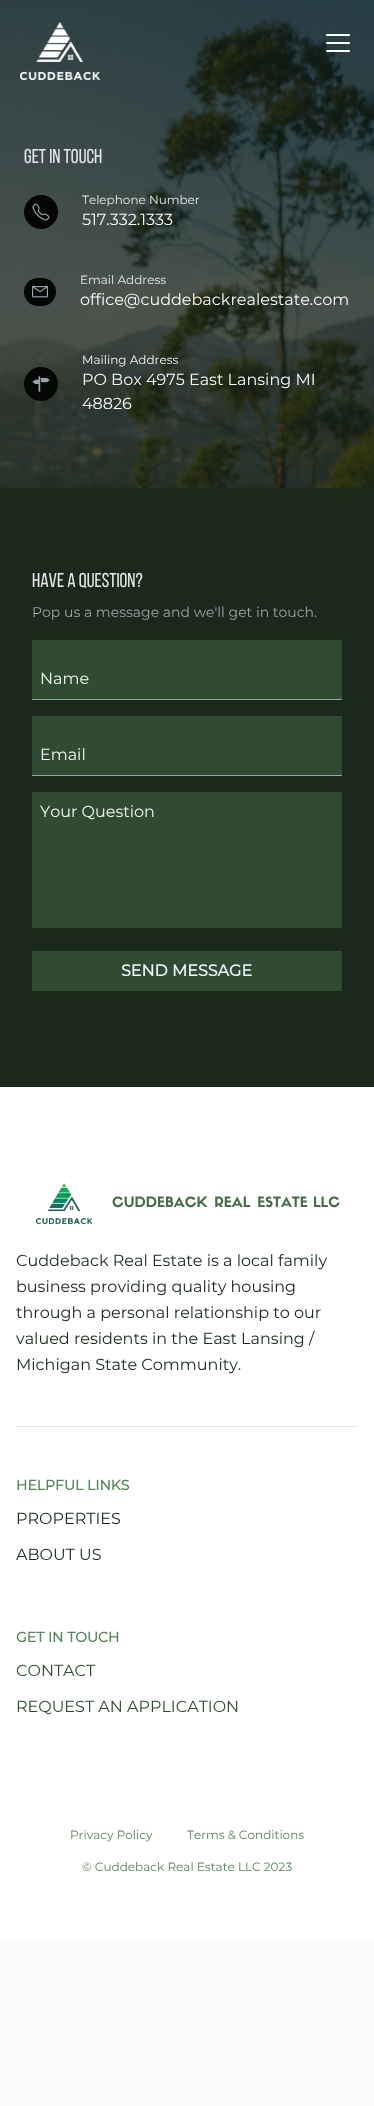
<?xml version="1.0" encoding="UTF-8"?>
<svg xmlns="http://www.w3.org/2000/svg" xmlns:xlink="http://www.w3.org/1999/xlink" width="374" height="2106">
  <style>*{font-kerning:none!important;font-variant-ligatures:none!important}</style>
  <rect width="100%" height="100%" fill="#f9fafb" />
  <image x="0" y="0" width="374" height="488" xlink:href="image2.png" />
  <rect width="374" height="488" fill="#1a291b" fill-opacity="0.5" />
  <image x="20" y="22" width="80" height="58" xlink:href="image1.png" />
  <path d="M 327 43 h 22 m -22 -8 h 22 m -22 16 h 22" fill="none" stroke="#ffffff" stroke-width="2" stroke-linecap="round" stroke-linejoin="round" />
  <circle cx="41" cy="212" r="17" fill="#040704" />
  <image x="32" y="203" width="18" height="18" xlink:href="image3.png" />
  <rect x="24" y="278" width="32" height="28" rx="14" fill="#040704" />
  <image x="32" y="286" width="16" height="12" xlink:href="image4.png" />
  <circle cx="41" cy="384" r="17" fill="#040704" />
  <image x="32" y="376" width="18" height="16" xlink:href="image5.png" />
  <rect y="488" width="374" height="599" fill="#1a291b" />
  <rect x="32" y="640" width="310" height="59" fill="#304b32" />
  <rect x="32" y="699" width="310" height="1" fill="#9ca3af" />
  <rect x="32" y="716" width="310" height="59" fill="#304b32" />
  <rect x="32" y="775" width="310" height="1" fill="#9ca3af" />
  <rect x="32" y="792" width="310" height="136" fill="#304b32" />
  <rect x="32" y="951" width="310" height="40" fill="#304b32" />
  <rect y="1087" width="374" height="852" fill="#ffffff" />
  <rect x="16" y="1426" width="342" height="1" fill="#e5e7eb" />
  <image x="36" y="1183" width="56" height="41" xlink:href="image6.png" />
  <text x="24" y="163" style="font-family: Bebas Neue; font-size: 20px; fill: #e5e7eb">Get in Touch</text>
  <text x="82" y="204" style="font-family: Montserrat; font-size: 12px; fill: #e5e7eb">Telephone Number</text>
  <text x="82" y="225" style="font-family: Montserrat; font-size: 16px; fill: #f9fafb">517.332.1333</text>
  <text x="80" y="284" style="font-family: Montserrat; font-size: 12px; fill: #e5e7eb">Email Address</text>
  <text x="80" y="305" style="font-family: Montserrat; font-size: 16px; fill: #f9fafb">office@cuddebackrealestate.com</text>
  <text x="82" y="364" style="font-family: Montserrat; font-size: 12px; fill: #f3f4f6">Mailing Address</text>
  <text x="82" y="385" style="font-family: Montserrat; font-size: 16px; fill: #f9fafb">PO Box 4975 East Lansing MI</text>
  <text x="82" y="409" style="font-family: Montserrat; font-size: 16px; fill: #f9fafb">48826</text>
  <text x="32" y="587" style="font-family: Bebas Neue; font-size: 20px; fill: #e5e7eb">Have a Question?</text>
  <text x="32" y="617" style="font-family: Montserrat; font-size: 14px; fill: #9ca3af">Pop us a message and we'll get in touch.</text>
  <text x="40" y="684" style="font-family: Montserrat; font-size: 16px; fill: #f3f4f6">Name</text>
  <text x="40" y="760" style="font-family: Montserrat; font-size: 16px; fill: #f3f4f6">Email</text>
  <text x="40" y="817" style="font-family: Montserrat; font-size: 16px; fill: #f3f4f6">Your Question</text>
  <text x="121" y="976" style="font-family: Montserrat; font-size: 16px; font-weight: bold; fill: #eff6ff">SEND MESSAGE</text>
  <text x="112" y="1207" word-spacing="1" style="font-family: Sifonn; font-size: 14px; font-weight: bold; fill: #466d49">CUDDEBACK REAL ESTATE</text>
  <text x="313" y="1207" word-spacing="1" style="font-family: Sifonn; font-size: 14px; font-weight: bold; fill: #466d49">LLC</text>
  <text x="16" y="1266" style="font-family: Montserrat; font-size: 16px; fill: #1a291b">Cuddeback Real Estate is a local family</text>
  <text x="16" y="1292" style="font-family: Montserrat; font-size: 16px; fill: #1a291b">business providing quality housing</text>
  <text x="16" y="1318" style="font-family: Montserrat; font-size: 16px; fill: #1a291b">through a personal relationship to our</text>
  <text x="16" y="1344" style="font-family: Montserrat; font-size: 16px; fill: #1a291b">valued residents in the East Lansing /</text>
  <text x="16" y="1370" style="font-family: Montserrat; font-size: 16px; fill: #1a291b">Michigan State Community.</text>
  <text x="16" y="1490" style="font-family: Montserrat; font-size: 14px; font-weight: bold; fill: #56865a">HELPFUL LINKS</text>
  <text x="16" y="1524" style="font-family: Montserrat; font-size: 16px; fill: #1a291b">PROPERTIES</text>
  <text x="16" y="1560" style="font-family: Montserrat; font-size: 16px; fill: #1a291b">ABOUT US</text>
  <text x="16" y="1642" style="font-family: Montserrat; font-size: 14px; font-weight: bold; fill: #56865a">GET IN TOUCH</text>
  <text x="16" y="1676" style="font-family: Montserrat; font-size: 16px; fill: #304b32">CONTACT</text>
  <text x="16" y="1712" style="font-family: Montserrat; font-size: 16px; fill: #304b32">REQUEST AN APPLICATION</text>
  <text x="70" y="1839" style="font-family: Montserrat; font-size: 12px; fill: #56865a">Privacy Policy</text>
  <text x="187" y="1839" style="font-family: Montserrat; font-size: 12px; fill: #56865a">Terms &amp; Conditions</text>
  <text x="82" y="1871" style="font-family: Montserrat; font-size: 12px; fill: #56865a">© Cuddeback Real Estate LLC 2023</text>
</svg>
